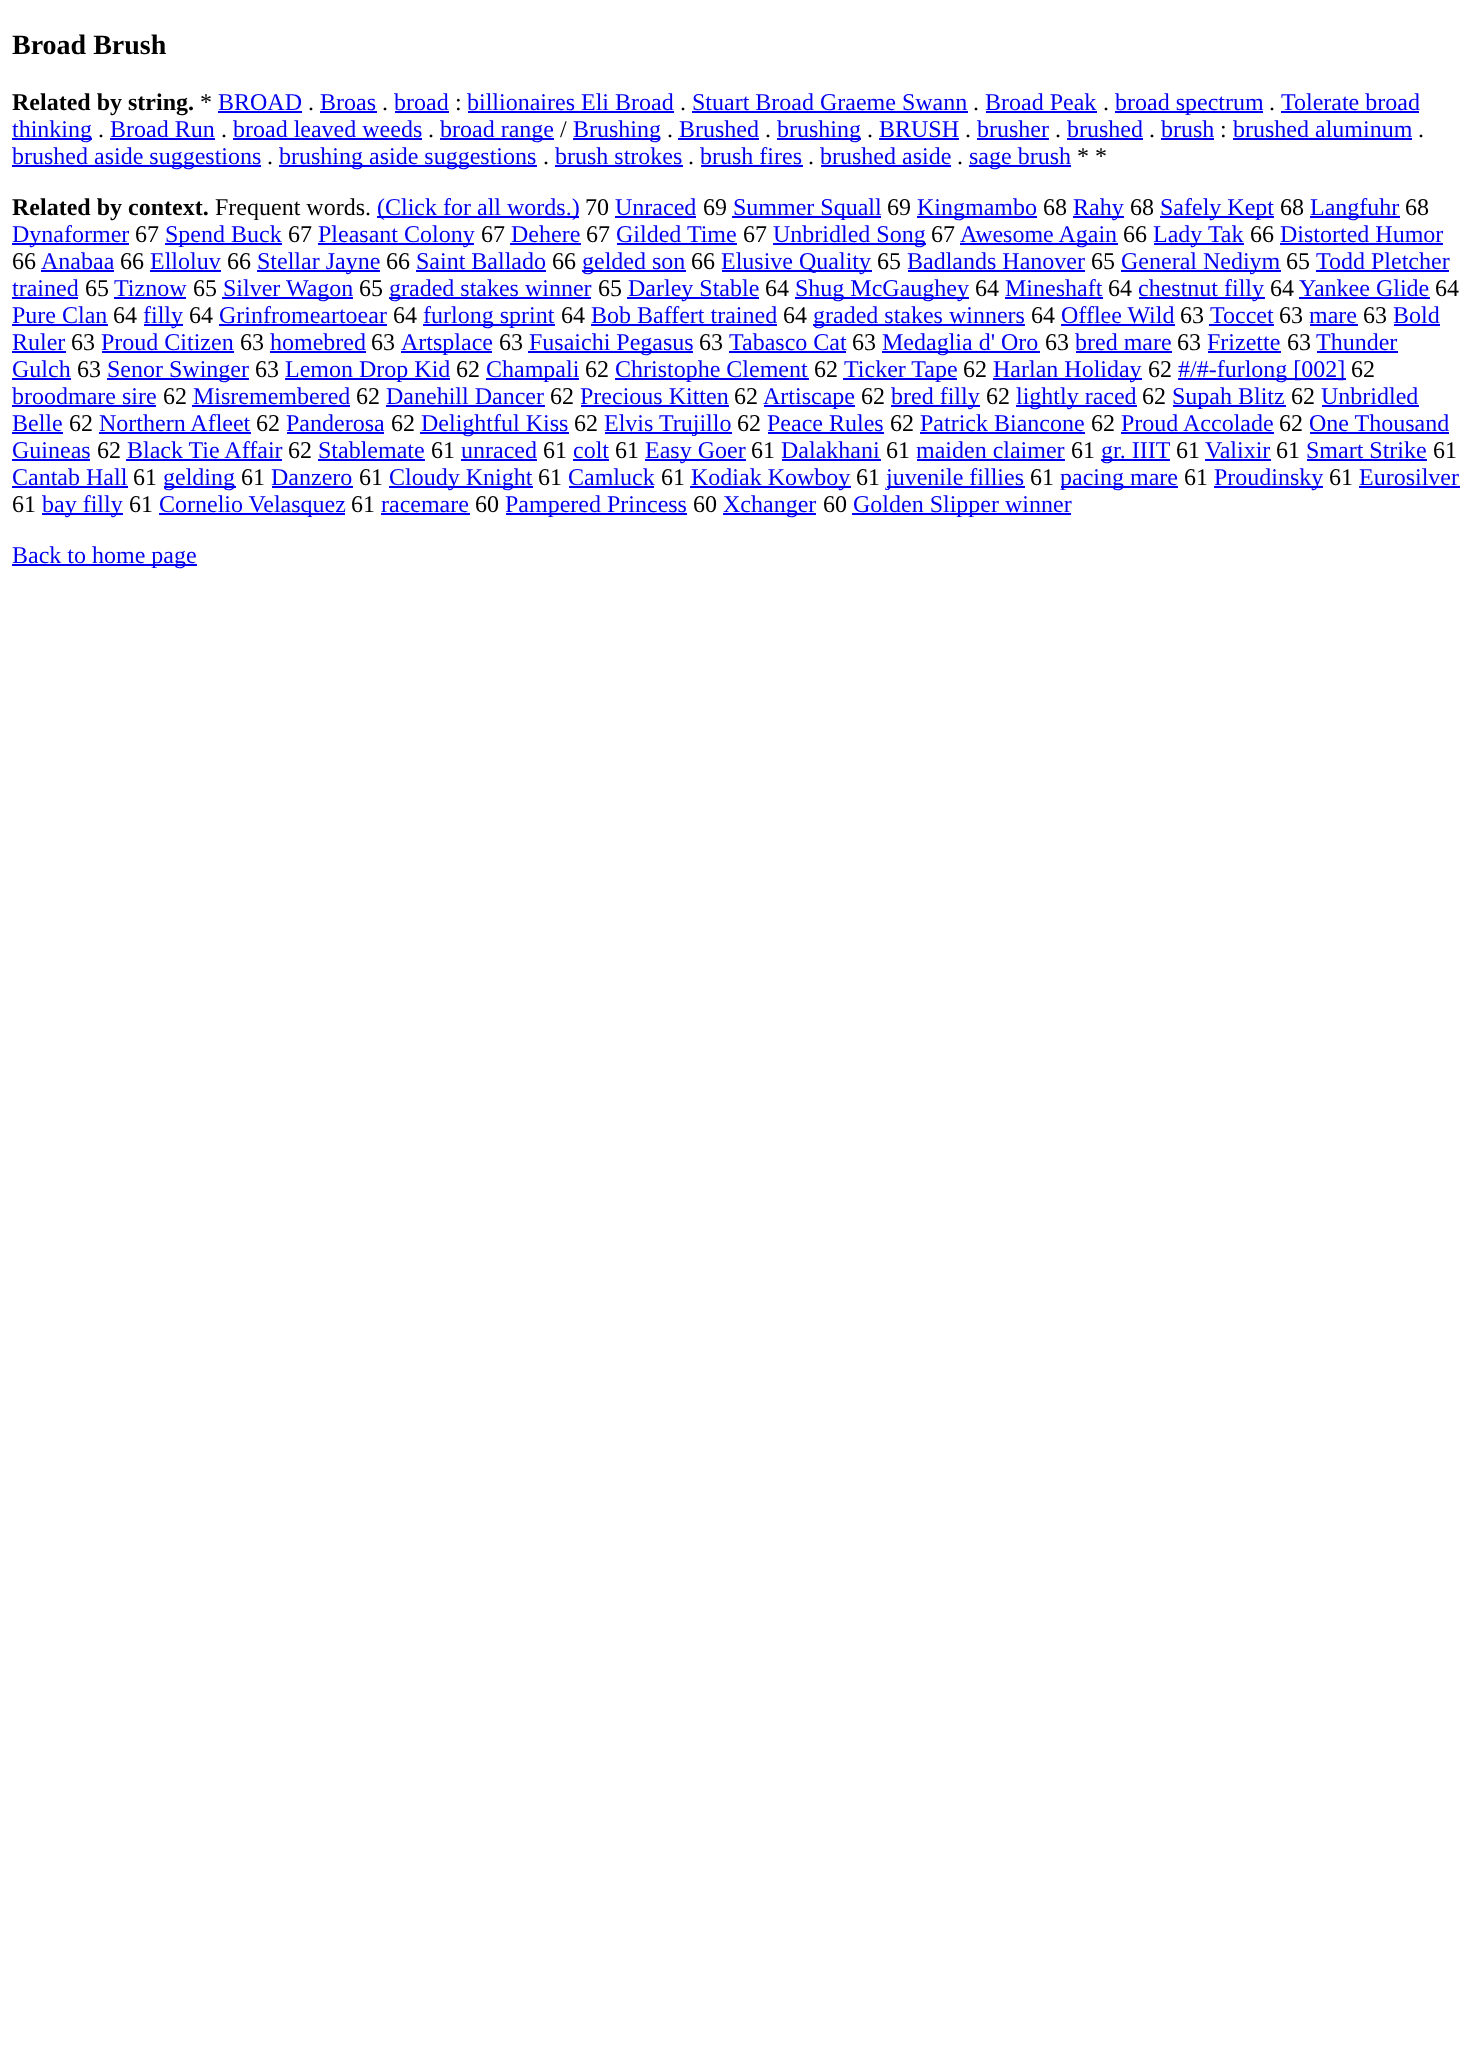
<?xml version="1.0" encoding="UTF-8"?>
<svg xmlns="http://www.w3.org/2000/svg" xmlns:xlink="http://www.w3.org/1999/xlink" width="1471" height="2072">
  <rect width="100%" height="100%" fill="#ffffff" />
  <rect x="218" y="111" width="84" height="2" fill="#0000ee" />
  <rect x="320" y="111" width="57" height="2" fill="#0000ee" />
  <rect x="395" y="111" width="54" height="2" fill="#0000ee" />
  <rect x="468" y="111" width="206" height="2" fill="#0000ee" />
  <rect x="692" y="111" width="276" height="2" fill="#0000ee" />
  <rect x="986" y="111" width="111" height="2" fill="#0000ee" />
  <rect x="1115" y="111" width="148" height="2" fill="#0000ee" />
  <rect x="1281" y="111" width="138" height="2" fill="#0000ee" />
  <rect x="12" y="138" width="80" height="2" fill="#0000ee" />
  <rect x="110" y="138" width="105" height="2" fill="#0000ee" />
  <rect x="233" y="138" width="189" height="2" fill="#0000ee" />
  <rect x="440" y="138" width="114" height="2" fill="#0000ee" />
  <rect x="573" y="138" width="87" height="2" fill="#0000ee" />
  <rect x="678" y="138" width="81" height="2" fill="#0000ee" />
  <rect x="777" y="138" width="84" height="2" fill="#0000ee" />
  <rect x="879" y="138" width="80" height="2" fill="#0000ee" />
  <rect x="977" y="138" width="72" height="2" fill="#0000ee" />
  <rect x="1067" y="138" width="76" height="2" fill="#0000ee" />
  <rect x="1161" y="138" width="53" height="2" fill="#0000ee" />
  <rect x="1233" y="138" width="179" height="2" fill="#0000ee" />
  <rect x="12" y="165" width="249" height="2" fill="#0000ee" />
  <rect x="279" y="165" width="258" height="2" fill="#0000ee" />
  <rect x="555" y="165" width="128" height="2" fill="#0000ee" />
  <rect x="701" y="165" width="102" height="2" fill="#0000ee" />
  <rect x="821" y="165" width="130" height="2" fill="#0000ee" />
  <rect x="969" y="165" width="102" height="2" fill="#0000ee" />
  <rect x="377" y="216" width="202" height="2" fill="#0000ee" />
  <rect x="615" y="216" width="81" height="2" fill="#0000ee" />
  <rect x="732" y="216" width="149" height="2" fill="#0000ee" />
  <rect x="917" y="216" width="120" height="2" fill="#0000ee" />
  <rect x="1073" y="216" width="51" height="2" fill="#0000ee" />
  <rect x="1160" y="216" width="114" height="2" fill="#0000ee" />
  <rect x="1310" y="216" width="90" height="2" fill="#0000ee" />
  <rect x="12" y="243" width="117" height="2" fill="#0000ee" />
  <rect x="165" y="243" width="117" height="2" fill="#0000ee" />
  <rect x="318" y="243" width="156" height="2" fill="#0000ee" />
  <rect x="510" y="243" width="71" height="2" fill="#0000ee" />
  <rect x="617" y="243" width="120" height="2" fill="#0000ee" />
  <rect x="773" y="243" width="153" height="2" fill="#0000ee" />
  <rect x="960" y="243" width="158" height="2" fill="#0000ee" />
  <rect x="1154" y="243" width="90" height="2" fill="#0000ee" />
  <rect x="1280" y="243" width="163" height="2" fill="#0000ee" />
  <rect x="41" y="270" width="73" height="2" fill="#0000ee" />
  <rect x="150" y="270" width="71" height="2" fill="#0000ee" />
  <rect x="257" y="270" width="123" height="2" fill="#0000ee" />
  <rect x="416" y="270" width="130" height="2" fill="#0000ee" />
  <rect x="582" y="270" width="104" height="2" fill="#0000ee" />
  <rect x="722" y="270" width="150" height="2" fill="#0000ee" />
  <rect x="908" y="270" width="177" height="2" fill="#0000ee" />
  <rect x="1121" y="270" width="160" height="2" fill="#0000ee" />
  <rect x="1316" y="270" width="133" height="2" fill="#0000ee" />
  <rect x="12" y="297" width="66" height="2" fill="#0000ee" />
  <rect x="114" y="297" width="72" height="2" fill="#0000ee" />
  <rect x="222" y="297" width="131" height="2" fill="#0000ee" />
  <rect x="389" y="297" width="202" height="2" fill="#0000ee" />
  <rect x="627" y="297" width="132" height="2" fill="#0000ee" />
  <rect x="795" y="297" width="174" height="2" fill="#0000ee" />
  <rect x="1005" y="297" width="98" height="2" fill="#0000ee" />
  <rect x="1139" y="297" width="126" height="2" fill="#0000ee" />
  <rect x="1299" y="297" width="131" height="2" fill="#0000ee" />
  <rect x="12" y="324" width="96" height="2" fill="#0000ee" />
  <rect x="144" y="324" width="39" height="2" fill="#0000ee" />
  <rect x="219" y="324" width="168" height="2" fill="#0000ee" />
  <rect x="423" y="324" width="132" height="2" fill="#0000ee" />
  <rect x="591" y="324" width="186" height="2" fill="#0000ee" />
  <rect x="813" y="324" width="212" height="2" fill="#0000ee" />
  <rect x="1061" y="324" width="114" height="2" fill="#0000ee" />
  <rect x="1209" y="324" width="65" height="2" fill="#0000ee" />
  <rect x="1310" y="324" width="48" height="2" fill="#0000ee" />
  <rect x="1394" y="324" width="46" height="2" fill="#0000ee" />
  <rect x="12" y="351" width="54" height="2" fill="#0000ee" />
  <rect x="102" y="351" width="132" height="2" fill="#0000ee" />
  <rect x="270" y="351" width="96" height="2" fill="#0000ee" />
  <rect x="401" y="351" width="91" height="2" fill="#0000ee" />
  <rect x="528" y="351" width="165" height="2" fill="#0000ee" />
  <rect x="729" y="351" width="117" height="2" fill="#0000ee" />
  <rect x="882" y="351" width="158" height="2" fill="#0000ee" />
  <rect x="1076" y="351" width="96" height="2" fill="#0000ee" />
  <rect x="1208" y="351" width="73" height="2" fill="#0000ee" />
  <rect x="1317" y="351" width="81" height="2" fill="#0000ee" />
  <rect x="12" y="378" width="59" height="2" fill="#0000ee" />
  <rect x="107" y="378" width="142" height="2" fill="#0000ee" />
  <rect x="285" y="378" width="165" height="2" fill="#0000ee" />
  <rect x="486" y="378" width="93" height="2" fill="#0000ee" />
  <rect x="615" y="378" width="194" height="2" fill="#0000ee" />
  <rect x="843" y="378" width="114" height="2" fill="#0000ee" />
  <rect x="993" y="378" width="149" height="2" fill="#0000ee" />
  <rect x="1178" y="378" width="168" height="2" fill="#0000ee" />
  <rect x="12" y="405" width="144" height="2" fill="#0000ee" />
  <rect x="192" y="405" width="158" height="2" fill="#0000ee" />
  <rect x="386" y="405" width="159" height="2" fill="#0000ee" />
  <rect x="581" y="405" width="148" height="2" fill="#0000ee" />
  <rect x="764" y="405" width="91" height="2" fill="#0000ee" />
  <rect x="891" y="405" width="89" height="2" fill="#0000ee" />
  <rect x="1016" y="405" width="121" height="2" fill="#0000ee" />
  <rect x="1173" y="405" width="113" height="2" fill="#0000ee" />
  <rect x="1322" y="405" width="97" height="2" fill="#0000ee" />
  <rect x="12" y="432" width="51" height="2" fill="#0000ee" />
  <rect x="99" y="432" width="152" height="2" fill="#0000ee" />
  <rect x="287" y="432" width="97" height="2" fill="#0000ee" />
  <rect x="420" y="432" width="149" height="2" fill="#0000ee" />
  <rect x="605" y="432" width="127" height="2" fill="#0000ee" />
  <rect x="768" y="432" width="116" height="2" fill="#0000ee" />
  <rect x="920" y="432" width="165" height="2" fill="#0000ee" />
  <rect x="1121" y="432" width="153" height="2" fill="#0000ee" />
  <rect x="1310" y="432" width="139" height="2" fill="#0000ee" />
  <rect x="12" y="459" width="78" height="2" fill="#0000ee" />
  <rect x="126" y="459" width="156" height="2" fill="#0000ee" />
  <rect x="318" y="459" width="107" height="2" fill="#0000ee" />
  <rect x="461" y="459" width="76" height="2" fill="#0000ee" />
  <rect x="573" y="459" width="36" height="2" fill="#0000ee" />
  <rect x="645" y="459" width="101" height="2" fill="#0000ee" />
  <rect x="782" y="459" width="99" height="2" fill="#0000ee" />
  <rect x="917" y="459" width="148" height="2" fill="#0000ee" />
  <rect x="1101" y="459" width="69" height="2" fill="#0000ee" />
  <rect x="1205" y="459" width="66" height="2" fill="#0000ee" />
  <rect x="1307" y="459" width="120" height="2" fill="#0000ee" />
  <rect x="12" y="486" width="116" height="2" fill="#0000ee" />
  <rect x="164" y="486" width="72" height="2" fill="#0000ee" />
  <rect x="272" y="486" width="81" height="2" fill="#0000ee" />
  <rect x="389" y="486" width="144" height="2" fill="#0000ee" />
  <rect x="569" y="486" width="85" height="2" fill="#0000ee" />
  <rect x="690" y="486" width="161" height="2" fill="#0000ee" />
  <rect x="887" y="486" width="138" height="2" fill="#0000ee" />
  <rect x="1061" y="486" width="117" height="2" fill="#0000ee" />
  <rect x="1214" y="486" width="109" height="2" fill="#0000ee" />
  <rect x="1359" y="486" width="101" height="2" fill="#0000ee" />
  <rect x="42" y="513" width="81" height="2" fill="#0000ee" />
  <rect x="159" y="513" width="186" height="2" fill="#0000ee" />
  <rect x="381" y="513" width="89" height="2" fill="#0000ee" />
  <rect x="506" y="513" width="181" height="2" fill="#0000ee" />
  <rect x="723" y="513" width="93" height="2" fill="#0000ee" />
  <rect x="852" y="513" width="219" height="2" fill="#0000ee" />
  <rect x="12" y="564" width="185" height="2" fill="#0000ee" />
  <text x="12" y="54" style="font-family: Liberation Serif; font-size: 28px; font-weight: bold; fill: #000000">Broad Brush</text>
  <text x="12" y="110" style="font-family: Liberation Serif; font-size: 24px; font-weight: bold; fill: #000000">Related by string.</text>
  <text x="200" y="110" style="font-family: Liberation Serif; font-size: 24px; fill: #000000">*</text>
  <text x="218" y="110" style="font-family: Liberation Serif; font-size: 24px; fill: #0000ee">BROAD</text>
  <text x="308" y="110" style="font-family: Liberation Serif; font-size: 24px; fill: #000000">.</text>
  <text x="320" y="110" style="font-family: Liberation Serif; font-size: 24px; fill: #0000ee">Broas</text>
  <text x="382" y="110" style="font-family: Liberation Serif; font-size: 24px; fill: #000000">.</text>
  <text x="394" y="110" style="font-family: Liberation Serif; font-size: 24px; fill: #0000ee">broad</text>
  <text x="455" y="110" style="font-family: Liberation Serif; font-size: 24px; fill: #000000">:</text>
  <text x="467" y="110" style="font-family: Liberation Serif; font-size: 24px; fill: #0000ee">billionaires Eli Broad</text>
  <text x="680" y="110" style="font-family: Liberation Serif; font-size: 24px; fill: #000000">.</text>
  <text x="692" y="110" style="font-family: Liberation Serif; font-size: 24px; fill: #0000ee">Stuart Broad Graeme Swann</text>
  <text x="973" y="110" style="font-family: Liberation Serif; font-size: 24px; fill: #000000">.</text>
  <text x="985" y="110" style="font-family: Liberation Serif; font-size: 24px; fill: #0000ee">Broad Peak</text>
  <text x="1103" y="110" style="font-family: Liberation Serif; font-size: 24px; fill: #000000">.</text>
  <text x="1115" y="110" style="font-family: Liberation Serif; font-size: 24px; fill: #0000ee">broad spectrum</text>
  <text x="1269" y="110" style="font-family: Liberation Serif; font-size: 24px; fill: #000000">.</text>
  <text x="1281" y="110" style="font-family: Liberation Serif; font-size: 24px; fill: #0000ee">Tolerate broad</text>
  <text x="12" y="137" style="font-family: Liberation Serif; font-size: 24px; fill: #0000ee">thinking</text>
  <text x="98" y="137" style="font-family: Liberation Serif; font-size: 24px; fill: #000000">.</text>
  <text x="110" y="137" style="font-family: Liberation Serif; font-size: 24px; fill: #0000ee">Broad Run</text>
  <text x="221" y="137" style="font-family: Liberation Serif; font-size: 24px; fill: #000000">.</text>
  <text x="233" y="137" style="font-family: Liberation Serif; font-size: 24px; fill: #0000ee">broad leaved weeds</text>
  <text x="428" y="137" style="font-family: Liberation Serif; font-size: 24px; fill: #000000">.</text>
  <text x="440" y="137" style="font-family: Liberation Serif; font-size: 24px; fill: #0000ee">broad range</text>
  <text x="560" y="137" style="font-family: Liberation Serif; font-size: 24px; fill: #000000">/</text>
  <text x="573" y="137" style="font-family: Liberation Serif; font-size: 24px; fill: #0000ee">Brushing</text>
  <text x="667" y="137" style="font-family: Liberation Serif; font-size: 24px; fill: #000000">.</text>
  <text x="679" y="137" style="font-family: Liberation Serif; font-size: 24px; fill: #0000ee">Brushed</text>
  <text x="765" y="137" style="font-family: Liberation Serif; font-size: 24px; fill: #000000">.</text>
  <text x="777" y="137" style="font-family: Liberation Serif; font-size: 24px; fill: #0000ee">brushing</text>
  <text x="867" y="137" style="font-family: Liberation Serif; font-size: 24px; fill: #000000">.</text>
  <text x="879" y="137" style="font-family: Liberation Serif; font-size: 24px; fill: #0000ee">BRUSH</text>
  <text x="965" y="137" style="font-family: Liberation Serif; font-size: 24px; fill: #000000">.</text>
  <text x="977" y="137" style="font-family: Liberation Serif; font-size: 24px; fill: #0000ee">brusher</text>
  <text x="1055" y="137" style="font-family: Liberation Serif; font-size: 24px; fill: #000000">.</text>
  <text x="1067" y="137" style="font-family: Liberation Serif; font-size: 24px; fill: #0000ee">brushed</text>
  <text x="1149" y="137" style="font-family: Liberation Serif; font-size: 24px; fill: #000000">.</text>
  <text x="1161" y="137" style="font-family: Liberation Serif; font-size: 24px; fill: #0000ee">brush</text>
  <text x="1220" y="137" style="font-family: Liberation Serif; font-size: 24px; fill: #000000">:</text>
  <text x="1233" y="137" style="font-family: Liberation Serif; font-size: 24px; fill: #0000ee">brushed aluminum</text>
  <text x="1418" y="137" style="font-family: Liberation Serif; font-size: 24px; fill: #000000">.</text>
  <text x="12" y="164" style="font-family: Liberation Serif; font-size: 24px; fill: #0000ee">brushed aside suggestions</text>
  <text x="279" y="164" style="font-family: Liberation Serif; font-size: 24px; fill: #0000ee">brushing aside suggestions</text>
  <text x="555" y="164" style="font-family: Liberation Serif; font-size: 24px; fill: #0000ee">brush strokes</text>
  <text x="700" y="164" style="font-family: Liberation Serif; font-size: 24px; fill: #0000ee">brush fires</text>
  <text x="820" y="164" style="font-family: Liberation Serif; font-size: 24px; fill: #0000ee">brushed aside</text>
  <text x="969" y="164" style="font-family: Liberation Serif; font-size: 24px; fill: #0000ee">sage brush</text>
  <text x="1077" y="164" style="font-family: Liberation Serif; font-size: 24px; fill: #000000">* *</text>
  <text x="267" y="164" style="font-family: Liberation Serif; font-size: 24px; fill: #000000">.</text>
  <text x="543" y="164" style="font-family: Liberation Serif; font-size: 24px; fill: #000000">.</text>
  <text x="688" y="164" style="font-family: Liberation Serif; font-size: 24px; fill: #000000">.</text>
  <text x="808" y="164" style="font-family: Liberation Serif; font-size: 24px; fill: #000000">.</text>
  <text x="957" y="164" style="font-family: Liberation Serif; font-size: 24px; fill: #000000">.</text>
  <text x="12" y="215" style="font-family: Liberation Serif; font-size: 24px; font-weight: bold; fill: #000000">Related by context.</text>
  <text x="215" y="215" style="font-family: Liberation Serif; font-size: 24px; fill: #000000">Frequent words.</text>
  <text x="377" y="215" style="font-family: Liberation Serif; font-size: 24px; fill: #0000ee">(Click for all words.)</text>
  <text x="585" y="215" style="font-family: Liberation Serif; font-size: 24px; fill: #000000">70</text>
  <text x="615" y="215" style="font-family: Liberation Serif; font-size: 24px; fill: #0000ee">Unraced</text>
  <text x="703" y="215" style="font-family: Liberation Serif; font-size: 24px; fill: #000000">69</text>
  <text x="733" y="215" style="font-family: Liberation Serif; font-size: 24px; fill: #0000ee">Summer Squall</text>
  <text x="887" y="215" style="font-family: Liberation Serif; font-size: 24px; fill: #000000">69</text>
  <text x="917" y="215" style="font-family: Liberation Serif; font-size: 24px; fill: #0000ee">Kingmambo</text>
  <text x="1043" y="215" style="font-family: Liberation Serif; font-size: 24px; fill: #000000">68</text>
  <text x="1073" y="215" style="font-family: Liberation Serif; font-size: 24px; fill: #0000ee">Rahy</text>
  <text x="1130" y="215" style="font-family: Liberation Serif; font-size: 24px; fill: #000000">68</text>
  <text x="1160" y="215" style="font-family: Liberation Serif; font-size: 24px; fill: #0000ee">Safely Kept</text>
  <text x="1280" y="215" style="font-family: Liberation Serif; font-size: 24px; fill: #000000">68</text>
  <text x="1310" y="215" style="font-family: Liberation Serif; font-size: 24px; fill: #0000ee">Langfuhr</text>
  <text x="1405" y="215" style="font-family: Liberation Serif; font-size: 24px; fill: #000000">68</text>
  <text x="12" y="242" style="font-family: Liberation Serif; font-size: 24px; fill: #0000ee">Dynaformer</text>
  <text x="135" y="242" style="font-family: Liberation Serif; font-size: 24px; fill: #000000">67</text>
  <text x="165" y="242" style="font-family: Liberation Serif; font-size: 24px; fill: #0000ee">Spend Buck</text>
  <text x="288" y="242" style="font-family: Liberation Serif; font-size: 24px; fill: #000000">67</text>
  <text x="318" y="242" style="font-family: Liberation Serif; font-size: 24px; fill: #0000ee">Pleasant Colony</text>
  <text x="481" y="242" style="font-family: Liberation Serif; font-size: 24px; fill: #000000">67</text>
  <text x="511" y="242" style="font-family: Liberation Serif; font-size: 24px; fill: #0000ee">Dehere</text>
  <text x="586" y="242" style="font-family: Liberation Serif; font-size: 24px; fill: #000000">67</text>
  <text x="616" y="242" style="font-family: Liberation Serif; font-size: 24px; fill: #0000ee">Gilded Time</text>
  <text x="743" y="242" style="font-family: Liberation Serif; font-size: 24px; fill: #000000">67</text>
  <text x="773" y="242" style="font-family: Liberation Serif; font-size: 24px; fill: #0000ee">Unbridled Song</text>
  <text x="931" y="242" style="font-family: Liberation Serif; font-size: 24px; fill: #000000">67</text>
  <text x="960" y="242" style="font-family: Liberation Serif; font-size: 24px; fill: #0000ee">Awesome Again</text>
  <text x="1123" y="242" style="font-family: Liberation Serif; font-size: 24px; fill: #000000">66</text>
  <text x="1153" y="242" style="font-family: Liberation Serif; font-size: 24px; fill: #0000ee">Lady Tak</text>
  <text x="1250" y="242" style="font-family: Liberation Serif; font-size: 24px; fill: #000000">66</text>
  <text x="1280" y="242" style="font-family: Liberation Serif; font-size: 24px; fill: #0000ee">Distorted Humor</text>
  <text x="12" y="269" style="font-family: Liberation Serif; font-size: 24px; fill: #000000">66</text>
  <text x="41" y="269" style="font-family: Liberation Serif; font-size: 24px; fill: #0000ee">Anabaa</text>
  <text x="120" y="269" style="font-family: Liberation Serif; font-size: 24px; fill: #000000">66</text>
  <text x="150" y="269" style="font-family: Liberation Serif; font-size: 24px; fill: #0000ee">Elloluv</text>
  <text x="227" y="269" style="font-family: Liberation Serif; font-size: 24px; fill: #000000">66</text>
  <text x="257" y="269" style="font-family: Liberation Serif; font-size: 24px; fill: #0000ee">Stellar Jayne</text>
  <text x="386" y="269" style="font-family: Liberation Serif; font-size: 24px; fill: #000000">66</text>
  <text x="416" y="269" style="font-family: Liberation Serif; font-size: 24px; fill: #0000ee">Saint Ballado</text>
  <text x="552" y="269" style="font-family: Liberation Serif; font-size: 24px; fill: #000000">66</text>
  <text x="582" y="269" style="font-family: Liberation Serif; font-size: 24px; fill: #0000ee">gelded son</text>
  <text x="691" y="269" style="font-family: Liberation Serif; font-size: 24px; fill: #000000">66</text>
  <text x="721" y="269" style="font-family: Liberation Serif; font-size: 24px; fill: #0000ee">Elusive Quality</text>
  <text x="877" y="269" style="font-family: Liberation Serif; font-size: 24px; fill: #000000">65</text>
  <text x="907" y="269" style="font-family: Liberation Serif; font-size: 24px; fill: #0000ee">Badlands Hanover</text>
  <text x="1091" y="269" style="font-family: Liberation Serif; font-size: 24px; fill: #000000">65</text>
  <text x="1121" y="269" style="font-family: Liberation Serif; font-size: 24px; fill: #0000ee">General Nediym</text>
  <text x="1286" y="269" style="font-family: Liberation Serif; font-size: 24px; fill: #000000">65</text>
  <text x="1316" y="269" style="font-family: Liberation Serif; font-size: 24px; fill: #0000ee">Todd Pletcher</text>
  <text x="12" y="296" style="font-family: Liberation Serif; font-size: 24px; fill: #0000ee">trained</text>
  <text x="85" y="296" style="font-family: Liberation Serif; font-size: 24px; fill: #000000">65</text>
  <text x="114" y="296" style="font-family: Liberation Serif; font-size: 24px; fill: #0000ee">Tiznow</text>
  <text x="193" y="296" style="font-family: Liberation Serif; font-size: 24px; fill: #000000">65</text>
  <text x="223" y="296" style="font-family: Liberation Serif; font-size: 24px; fill: #0000ee">Silver Wagon</text>
  <text x="359" y="296" style="font-family: Liberation Serif; font-size: 24px; fill: #000000">65</text>
  <text x="389" y="296" style="font-family: Liberation Serif; font-size: 24px; fill: #0000ee">graded stakes winner</text>
  <text x="598" y="296" style="font-family: Liberation Serif; font-size: 24px; fill: #000000">65</text>
  <text x="628" y="296" style="font-family: Liberation Serif; font-size: 24px; fill: #0000ee">Darley Stable</text>
  <text x="765" y="296" style="font-family: Liberation Serif; font-size: 24px; fill: #000000">64</text>
  <text x="795" y="296" style="font-family: Liberation Serif; font-size: 24px; fill: #0000ee">Shug McGaughey</text>
  <text x="975" y="296" style="font-family: Liberation Serif; font-size: 24px; fill: #000000">64</text>
  <text x="1005" y="296" style="font-family: Liberation Serif; font-size: 24px; fill: #0000ee">Mineshaft</text>
  <text x="1108" y="296" style="font-family: Liberation Serif; font-size: 24px; fill: #000000">64</text>
  <text x="1138" y="296" style="font-family: Liberation Serif; font-size: 24px; fill: #0000ee">chestnut filly</text>
  <text x="1270" y="296" style="font-family: Liberation Serif; font-size: 24px; fill: #000000">64</text>
  <text x="1299" y="296" style="font-family: Liberation Serif; font-size: 24px; fill: #0000ee">Yankee Glide</text>
  <text x="1435" y="296" style="font-family: Liberation Serif; font-size: 24px; fill: #000000">64</text>
  <text x="12" y="323" style="font-family: Liberation Serif; font-size: 24px; fill: #0000ee">Pure Clan</text>
  <text x="113" y="323" style="font-family: Liberation Serif; font-size: 24px; fill: #000000">64</text>
  <text x="143" y="323" style="font-family: Liberation Serif; font-size: 24px; fill: #0000ee">filly</text>
  <text x="189" y="323" style="font-family: Liberation Serif; font-size: 24px; fill: #000000">64</text>
  <text x="219" y="323" style="font-family: Liberation Serif; font-size: 24px; fill: #0000ee">Grinfromeartoear</text>
  <text x="393" y="323" style="font-family: Liberation Serif; font-size: 24px; fill: #000000">64</text>
  <text x="423" y="323" style="font-family: Liberation Serif; font-size: 24px; fill: #0000ee">furlong sprint</text>
  <text x="561" y="323" style="font-family: Liberation Serif; font-size: 24px; fill: #000000">64</text>
  <text x="591" y="323" style="font-family: Liberation Serif; font-size: 24px; fill: #0000ee">Bob Baffert trained</text>
  <text x="783" y="323" style="font-family: Liberation Serif; font-size: 24px; fill: #000000">64</text>
  <text x="813" y="323" style="font-family: Liberation Serif; font-size: 24px; fill: #0000ee">graded stakes winners</text>
  <text x="1031" y="323" style="font-family: Liberation Serif; font-size: 24px; fill: #000000">64</text>
  <text x="1061" y="323" style="font-family: Liberation Serif; font-size: 24px; fill: #0000ee">Offlee Wild</text>
  <text x="1180" y="323" style="font-family: Liberation Serif; font-size: 24px; fill: #000000">63</text>
  <text x="1210" y="323" style="font-family: Liberation Serif; font-size: 24px; fill: #0000ee">Toccet</text>
  <text x="1279" y="323" style="font-family: Liberation Serif; font-size: 24px; fill: #000000">63</text>
  <text x="1309" y="323" style="font-family: Liberation Serif; font-size: 24px; fill: #0000ee">mare</text>
  <text x="1363" y="323" style="font-family: Liberation Serif; font-size: 24px; fill: #000000">63</text>
  <text x="1393" y="323" style="font-family: Liberation Serif; font-size: 24px; fill: #0000ee">Bold</text>
  <text x="12" y="350" style="font-family: Liberation Serif; font-size: 24px; fill: #0000ee">Ruler</text>
  <text x="71" y="350" style="font-family: Liberation Serif; font-size: 24px; fill: #000000">63</text>
  <text x="101" y="350" style="font-family: Liberation Serif; font-size: 24px; fill: #0000ee">Proud Citizen</text>
  <text x="240" y="350" style="font-family: Liberation Serif; font-size: 24px; fill: #000000">63</text>
  <text x="270" y="350" style="font-family: Liberation Serif; font-size: 24px; fill: #0000ee">homebred</text>
  <text x="371" y="350" style="font-family: Liberation Serif; font-size: 24px; fill: #000000">63</text>
  <text x="401" y="350" style="font-family: Liberation Serif; font-size: 24px; fill: #0000ee">Artsplace</text>
  <text x="499" y="350" style="font-family: Liberation Serif; font-size: 24px; fill: #000000">63</text>
  <text x="529" y="350" style="font-family: Liberation Serif; font-size: 24px; fill: #0000ee">Fusaichi Pegasus</text>
  <text x="699" y="350" style="font-family: Liberation Serif; font-size: 24px; fill: #000000">63</text>
  <text x="729" y="350" style="font-family: Liberation Serif; font-size: 24px; fill: #0000ee">Tabasco Cat</text>
  <text x="852" y="350" style="font-family: Liberation Serif; font-size: 24px; fill: #000000">63</text>
  <text x="882" y="350" style="font-family: Liberation Serif; font-size: 24px; fill: #0000ee">Medaglia d' Oro</text>
  <text x="1045" y="350" style="font-family: Liberation Serif; font-size: 24px; fill: #000000">63</text>
  <text x="1075" y="350" style="font-family: Liberation Serif; font-size: 24px; fill: #0000ee">bred mare</text>
  <text x="1177" y="350" style="font-family: Liberation Serif; font-size: 24px; fill: #000000">63</text>
  <text x="1207" y="350" style="font-family: Liberation Serif; font-size: 24px; fill: #0000ee">Frizette</text>
  <text x="1287" y="350" style="font-family: Liberation Serif; font-size: 24px; fill: #000000">63</text>
  <text x="1316" y="350" style="font-family: Liberation Serif; font-size: 24px; fill: #0000ee">Thunder</text>
  <text x="12" y="377" style="font-family: Liberation Serif; font-size: 24px; fill: #0000ee">Gulch</text>
  <text x="77" y="377" style="font-family: Liberation Serif; font-size: 24px; fill: #000000">63</text>
  <text x="107" y="377" style="font-family: Liberation Serif; font-size: 24px; fill: #0000ee">Senor Swinger</text>
  <text x="255" y="377" style="font-family: Liberation Serif; font-size: 24px; fill: #000000">63</text>
  <text x="285" y="377" style="font-family: Liberation Serif; font-size: 24px; fill: #0000ee">Lemon Drop Kid</text>
  <text x="456" y="377" style="font-family: Liberation Serif; font-size: 24px; fill: #000000">62</text>
  <text x="486" y="377" style="font-family: Liberation Serif; font-size: 24px; fill: #0000ee">Champali</text>
  <text x="585" y="377" style="font-family: Liberation Serif; font-size: 24px; fill: #000000">62</text>
  <text x="615" y="377" style="font-family: Liberation Serif; font-size: 24px; fill: #0000ee">Christophe Clement</text>
  <text x="814" y="377" style="font-family: Liberation Serif; font-size: 24px; fill: #000000">62</text>
  <text x="844" y="377" style="font-family: Liberation Serif; font-size: 24px; fill: #0000ee">Ticker Tape</text>
  <text x="963" y="377" style="font-family: Liberation Serif; font-size: 24px; fill: #000000">62</text>
  <text x="993" y="377" style="font-family: Liberation Serif; font-size: 24px; fill: #0000ee">Harlan Holiday</text>
  <text x="1148" y="377" style="font-family: Liberation Serif; font-size: 24px; fill: #000000">62</text>
  <text x="1178" y="377" style="font-family: Liberation Serif; font-size: 24px; fill: #0000ee">#/#-furlong [002]</text>
  <text x="1351" y="377" style="font-family: Liberation Serif; font-size: 24px; fill: #000000">62</text>
  <text x="12" y="404" style="font-family: Liberation Serif; font-size: 24px; fill: #0000ee">broodmare sire</text>
  <text x="163" y="404" style="font-family: Liberation Serif; font-size: 24px; fill: #000000">62</text>
  <text x="193" y="404" style="font-family: Liberation Serif; font-size: 24px; fill: #0000ee">Misremembered</text>
  <text x="356" y="404" style="font-family: Liberation Serif; font-size: 24px; fill: #000000">62</text>
  <text x="386" y="404" style="font-family: Liberation Serif; font-size: 24px; fill: #0000ee">Danehill Dancer</text>
  <text x="550" y="404" style="font-family: Liberation Serif; font-size: 24px; fill: #000000">62</text>
  <text x="580" y="404" style="font-family: Liberation Serif; font-size: 24px; fill: #0000ee">Precious Kitten</text>
  <text x="734" y="404" style="font-family: Liberation Serif; font-size: 24px; fill: #000000">62</text>
  <text x="763" y="404" style="font-family: Liberation Serif; font-size: 24px; fill: #0000ee">Artiscape</text>
  <text x="861" y="404" style="font-family: Liberation Serif; font-size: 24px; fill: #000000">62</text>
  <text x="891" y="404" style="font-family: Liberation Serif; font-size: 24px; fill: #0000ee">bred filly</text>
  <text x="986" y="404" style="font-family: Liberation Serif; font-size: 24px; fill: #000000">62</text>
  <text x="1016" y="404" style="font-family: Liberation Serif; font-size: 24px; fill: #0000ee">lightly raced</text>
  <text x="1142" y="404" style="font-family: Liberation Serif; font-size: 24px; fill: #000000">62</text>
  <text x="1172" y="404" style="font-family: Liberation Serif; font-size: 24px; fill: #0000ee">Supah Blitz</text>
  <text x="1291" y="404" style="font-family: Liberation Serif; font-size: 24px; fill: #000000">62</text>
  <text x="1321" y="404" style="font-family: Liberation Serif; font-size: 24px; fill: #0000ee">Unbridled</text>
  <text x="12" y="431" style="font-family: Liberation Serif; font-size: 24px; fill: #0000ee">Belle</text>
  <text x="69" y="431" style="font-family: Liberation Serif; font-size: 24px; fill: #000000">62</text>
  <text x="99" y="431" style="font-family: Liberation Serif; font-size: 24px; fill: #0000ee">Northern Afleet</text>
  <text x="256" y="431" style="font-family: Liberation Serif; font-size: 24px; fill: #000000">62</text>
  <text x="286" y="431" style="font-family: Liberation Serif; font-size: 24px; fill: #0000ee">Panderosa</text>
  <text x="391" y="431" style="font-family: Liberation Serif; font-size: 24px; fill: #000000">62</text>
  <text x="421" y="431" style="font-family: Liberation Serif; font-size: 24px; fill: #0000ee">Delightful Kiss</text>
  <text x="574" y="431" style="font-family: Liberation Serif; font-size: 24px; fill: #000000">62</text>
  <text x="604" y="431" style="font-family: Liberation Serif; font-size: 24px; fill: #0000ee">Elvis Trujillo</text>
  <text x="737" y="431" style="font-family: Liberation Serif; font-size: 24px; fill: #000000">62</text>
  <text x="767" y="431" style="font-family: Liberation Serif; font-size: 24px; fill: #0000ee">Peace Rules</text>
  <text x="890" y="431" style="font-family: Liberation Serif; font-size: 24px; fill: #000000">62</text>
  <text x="920" y="431" style="font-family: Liberation Serif; font-size: 24px; fill: #0000ee">Patrick Biancone</text>
  <text x="1091" y="431" style="font-family: Liberation Serif; font-size: 24px; fill: #000000">62</text>
  <text x="1121" y="431" style="font-family: Liberation Serif; font-size: 24px; fill: #0000ee">Proud Accolade</text>
  <text x="1279" y="431" style="font-family: Liberation Serif; font-size: 24px; fill: #000000">62</text>
  <text x="1309" y="431" style="font-family: Liberation Serif; font-size: 24px; fill: #0000ee">One Thousand</text>
  <text x="12" y="458" style="font-family: Liberation Serif; font-size: 24px; fill: #0000ee">Guineas</text>
  <text x="97" y="458" style="font-family: Liberation Serif; font-size: 24px; fill: #000000">62</text>
  <text x="127" y="458" style="font-family: Liberation Serif; font-size: 24px; fill: #0000ee">Black Tie Affair</text>
  <text x="288" y="458" style="font-family: Liberation Serif; font-size: 24px; fill: #000000">62</text>
  <text x="318" y="458" style="font-family: Liberation Serif; font-size: 24px; fill: #0000ee">Stablemate</text>
  <text x="431" y="458" style="font-family: Liberation Serif; font-size: 24px; fill: #000000">61</text>
  <text x="461" y="458" style="font-family: Liberation Serif; font-size: 24px; fill: #0000ee">unraced</text>
  <text x="543" y="458" style="font-family: Liberation Serif; font-size: 24px; fill: #000000">61</text>
  <text x="573" y="458" style="font-family: Liberation Serif; font-size: 24px; fill: #0000ee">colt</text>
  <text x="615" y="458" style="font-family: Liberation Serif; font-size: 24px; fill: #000000">61</text>
  <text x="645" y="458" style="font-family: Liberation Serif; font-size: 24px; fill: #0000ee">Easy Goer</text>
  <text x="751" y="458" style="font-family: Liberation Serif; font-size: 24px; fill: #000000">61</text>
  <text x="781" y="458" style="font-family: Liberation Serif; font-size: 24px; fill: #0000ee">Dalakhani</text>
  <text x="886" y="458" style="font-family: Liberation Serif; font-size: 24px; fill: #000000">61</text>
  <text x="916" y="458" style="font-family: Liberation Serif; font-size: 24px; fill: #0000ee">maiden claimer</text>
  <text x="1071" y="458" style="font-family: Liberation Serif; font-size: 24px; fill: #000000">61</text>
  <text x="1101" y="458" style="font-family: Liberation Serif; font-size: 24px; fill: #0000ee">gr. IIIT</text>
  <text x="1176" y="458" style="font-family: Liberation Serif; font-size: 24px; fill: #000000">61</text>
  <text x="1205" y="458" style="font-family: Liberation Serif; font-size: 24px; fill: #0000ee">Valixir</text>
  <text x="1276" y="458" style="font-family: Liberation Serif; font-size: 24px; fill: #000000">61</text>
  <text x="1306" y="458" style="font-family: Liberation Serif; font-size: 24px; fill: #0000ee">Smart Strike</text>
  <text x="1433" y="458" style="font-family: Liberation Serif; font-size: 24px; fill: #000000">61</text>
  <text x="12" y="485" style="font-family: Liberation Serif; font-size: 24px; fill: #0000ee">Cantab Hall</text>
  <text x="133" y="485" style="font-family: Liberation Serif; font-size: 24px; fill: #000000">61</text>
  <text x="163" y="485" style="font-family: Liberation Serif; font-size: 24px; fill: #0000ee">gelding</text>
  <text x="241" y="485" style="font-family: Liberation Serif; font-size: 24px; fill: #000000">61</text>
  <text x="271" y="485" style="font-family: Liberation Serif; font-size: 24px; fill: #0000ee">Danzero</text>
  <text x="359" y="485" style="font-family: Liberation Serif; font-size: 24px; fill: #000000">61</text>
  <text x="389" y="485" style="font-family: Liberation Serif; font-size: 24px; fill: #0000ee">Cloudy Knight</text>
  <text x="538" y="485" style="font-family: Liberation Serif; font-size: 24px; fill: #000000">61</text>
  <text x="568" y="485" style="font-family: Liberation Serif; font-size: 24px; fill: #0000ee">Camluck</text>
  <text x="661" y="485" style="font-family: Liberation Serif; font-size: 24px; fill: #000000">61</text>
  <text x="691" y="485" style="font-family: Liberation Serif; font-size: 24px; fill: #0000ee">Kodiak Kowboy</text>
  <text x="856" y="485" style="font-family: Liberation Serif; font-size: 24px; fill: #000000">61</text>
  <text x="886" y="485" style="font-family: Liberation Serif; font-size: 24px; fill: #0000ee">juvenile fillies</text>
  <text x="1030" y="485" style="font-family: Liberation Serif; font-size: 24px; fill: #000000">61</text>
  <text x="1060" y="485" style="font-family: Liberation Serif; font-size: 24px; fill: #0000ee">pacing mare</text>
  <text x="1184" y="485" style="font-family: Liberation Serif; font-size: 24px; fill: #000000">61</text>
  <text x="1214" y="485" style="font-family: Liberation Serif; font-size: 24px; fill: #0000ee">Proudinsky</text>
  <text x="1329" y="485" style="font-family: Liberation Serif; font-size: 24px; fill: #000000">61</text>
  <text x="1359" y="485" style="font-family: Liberation Serif; font-size: 24px; fill: #0000ee">Eurosilver</text>
  <text x="12" y="512" style="font-family: Liberation Serif; font-size: 24px; fill: #000000">61</text>
  <text x="42" y="512" style="font-family: Liberation Serif; font-size: 24px; fill: #0000ee">bay filly</text>
  <text x="129" y="512" style="font-family: Liberation Serif; font-size: 24px; fill: #000000">61</text>
  <text x="159" y="512" style="font-family: Liberation Serif; font-size: 24px; fill: #0000ee">Cornelio Velasquez</text>
  <text x="351" y="512" style="font-family: Liberation Serif; font-size: 24px; fill: #000000">61</text>
  <text x="381" y="512" style="font-family: Liberation Serif; font-size: 24px; fill: #0000ee">racemare</text>
  <text x="475" y="512" style="font-family: Liberation Serif; font-size: 24px; fill: #000000">60</text>
  <text x="505" y="512" style="font-family: Liberation Serif; font-size: 24px; fill: #0000ee">Pampered Princess</text>
  <text x="693" y="512" style="font-family: Liberation Serif; font-size: 24px; fill: #000000">60</text>
  <text x="723" y="512" style="font-family: Liberation Serif; font-size: 24px; fill: #0000ee">Xchanger</text>
  <text x="823" y="512" style="font-family: Liberation Serif; font-size: 24px; fill: #000000">60</text>
  <text x="853" y="512" style="font-family: Liberation Serif; font-size: 24px; fill: #0000ee">Golden Slipper winner</text>
  <text x="12" y="563" style="font-family: Liberation Serif; font-size: 24px; fill: #0000ee">Back to home page</text>
</svg>
